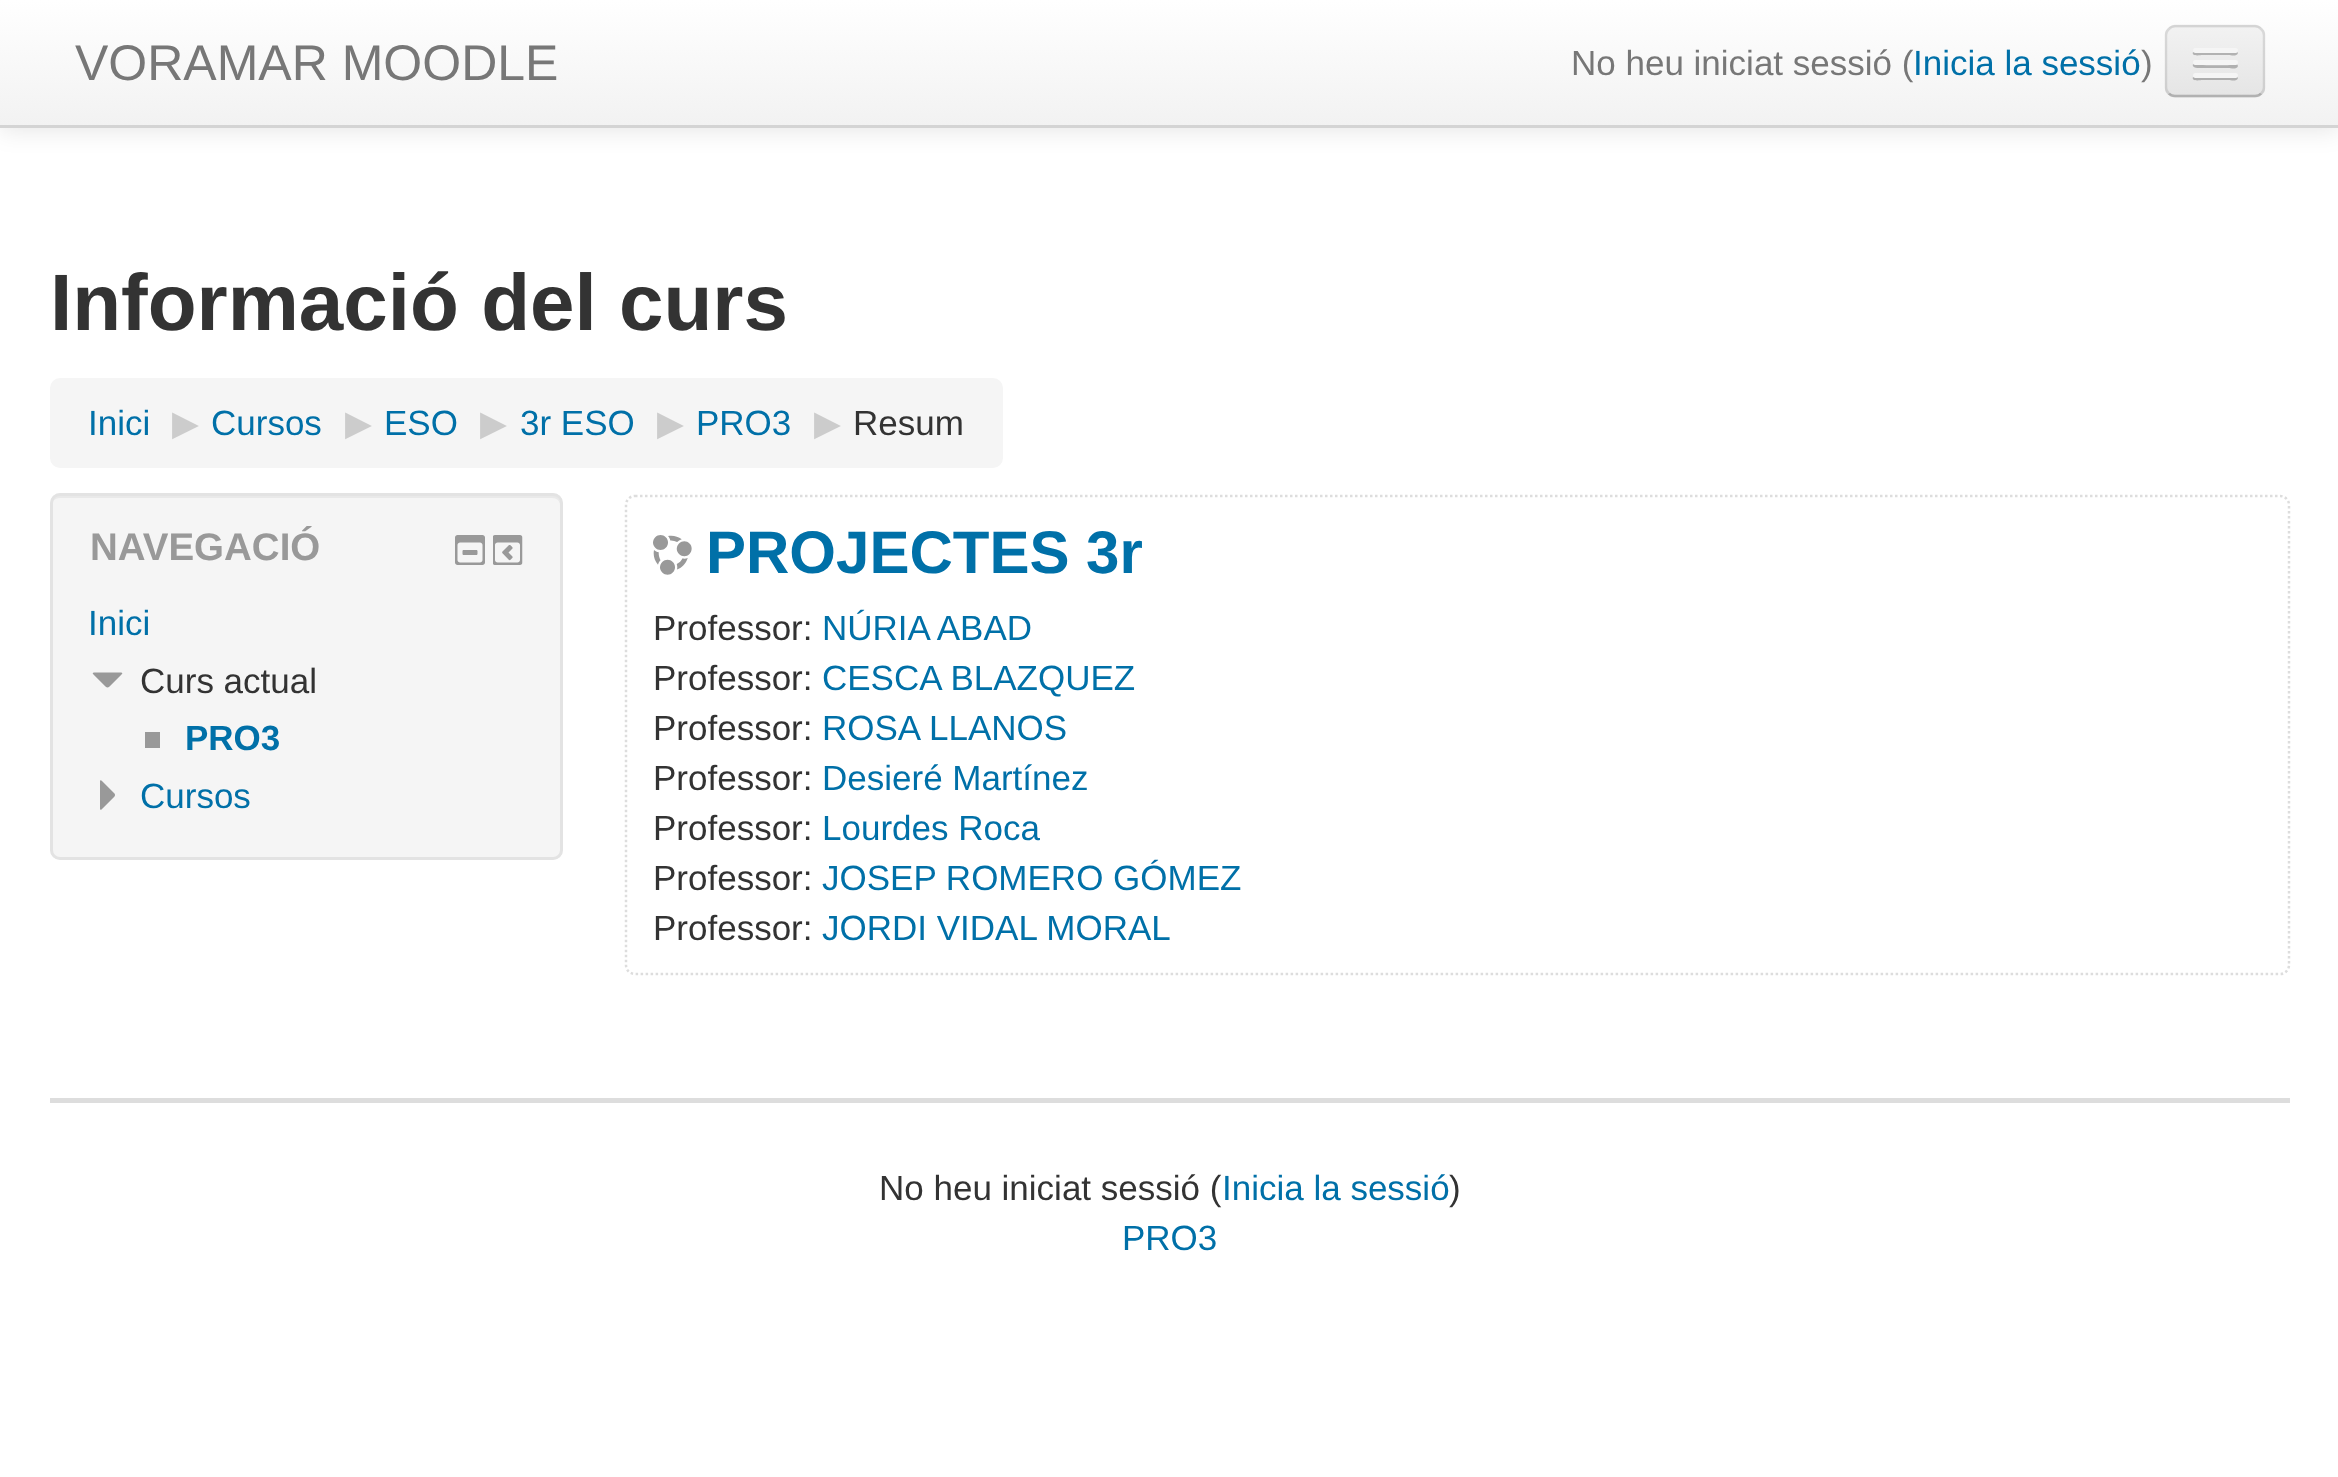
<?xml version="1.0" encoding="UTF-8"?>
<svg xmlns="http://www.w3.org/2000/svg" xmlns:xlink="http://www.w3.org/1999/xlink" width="2338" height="1477">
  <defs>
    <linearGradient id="g1" gradientUnits="userSpaceOnUse" x1="1170" y1="0" x2="1170" y2="125"><stop offset="0" stop-color="#ffffff" /><stop offset="1" stop-color="#f2f2f2" /></linearGradient>
    <clipPath id="clip1"><rect x="2165" y="25" width="100" height="73" rx="10" /></clipPath>
    <linearGradient id="g2" gradientUnits="userSpaceOnUse" x1="2215" y1="27" x2="2215" y2="95"><stop offset="0" stop-color="#f2f2f2" /><stop offset="1" stop-color="#e5e5e5" /></linearGradient>
  </defs>
  <rect width="100%" height="100%" fill="#ffffff" />
  <rect y="3" width="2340" height="127" fill="#000000" fill-opacity="0.1" filter="blur(12.5px)" />
  <rect width="2338" height="125" fill="url(#g1)" />
  <rect y="125" width="2338" height="3" fill="#d4d4d4" />
  <rect x="2165" y="25" width="100" height="73" rx="10" fill="#ededed" />
  <g clip-path="url(#clip1)">
    <rect x="2165" y="28" width="100" height="67" fill="url(#g2)" />
  </g>
  <path d="M 2261 93.5 c -1.5 2 -3.5 2.5 -6 2.5 h -80 c -2.5 0 -4.5 -0.5 -6 -2.5" fill="none" stroke="#000000" stroke-opacity="0.25" stroke-width="2.5" />
  <path d="M 2169 93.5 c -2 -1.5 -3 -3.5 -3 -6 v -52.5 c 0 -2.5 1 -4.5 3 -6 c 1.5 -2 3.5 -3 6 -3 h 80 c 2.5 0 4.5 1 6 3 c 2 1.5 3 3.5 3 6 v 52.5 c 0 2.5 -1 4.5 -3 6" fill="none" stroke="#000000" stroke-opacity="0.1" stroke-width="2.5" />
  <path d="M 2193 52 c -2 5 8 3 9 3 h 27 c 1 0 8 2 9 -2 l -1 -2 l -2 1 h -40 z" fill="#b2b2b2" />
  <rect x="2193" y="48" width="45" height="5" rx="2.5" fill="#f5f5f5" />
  <path d="M 2193 64 c -2 5 9 4 9 4 h 27 c 1 0 8 2 9 -2 l -1 -2 l -2 1 c -3 0 -40 1 -42 -1 z" fill="#b0b0b0" />
  <rect x="2193" y="60" width="45" height="5" rx="2.5" fill="#f5f5f5" />
  <path d="M 2193 77 c -2 5 8 3 9 3 h 27 c 1 0 8 2 9 -2 l -1 -2 l -2 1 h -40 z" fill="#aeaeae" />
  <rect x="2193" y="73" width="45" height="5" rx="2.5" fill="#f5f5f5" />
  <rect x="50" y="378" width="953" height="90" rx="10" fill="#f5f5f5" />
  <rect x="50" y="493" width="513" height="367" rx="10" fill="#f5f5f5" />
  <path d="M 60 498 h 492 c 5 0 8 3 8 7 v -2 c 0 -4 -4 -8 -8 -8 h -491 c -4 0 -7 3 -8 6 c 2 -2 4 -3 7 -3 z" fill="#e9e9e9" />
  <rect x="51.5" y="494.5" width="510" height="364" rx="8.5" fill="none" stroke="#e3e3e3" stroke-width="3" />
  <image x="455" y="535" width="30" height="30" xlink:href="image1.png" />
  <image x="493" y="535" width="30" height="30" xlink:href="image2.png" />
  <image x="92" y="672" width="31" height="16" xlink:href="image3.png" />
  <rect x="145" y="732" width="15" height="16" fill="#999999" />
  <image x="100" y="780" width="15" height="30" xlink:href="image4.png" />
  <path d="M 635 496 h 1645 c 5 0 9 4 9 9 v 460 c 0 5 -4 9 -9 9 h -1645 c -5 0 -9 -4 -9 -9 v -460 c 0 -5 4 -9 9 -9 z" fill="none" stroke="#dddddd" stroke-width="2.5" stroke-dasharray="2.5 2.5" />
  <image x="653" y="535" width="39" height="40" xlink:href="image5.png" />
  <rect x="50" y="1098" width="2240" height="5" fill="#dddddd" />
  <text x="75" y="80" style="font-family: Liberation Sans; font-size: 50px; fill: #777777">VORAMAR MOODLE</text>
  <text x="1571" y="75" style="font-family: Liberation Sans; font-size: 35px; fill: #777777">No heu iniciat sessió (</text>
  <text x="1913" y="75" style="font-family: Liberation Sans; font-size: 35px; fill: #0070a8">Inicia la sessió</text>
  <text x="2141" y="75" style="font-family: Liberation Sans; font-size: 35px; fill: #777777">)</text>
  <text x="50" y="330" style="font-family: Liberation Sans; font-size: 80px; font-weight: bold; fill: #333333">Informació del curs</text>
  <text x="88" y="435" style="font-family: Liberation Sans; font-size: 35px; fill: #0070a8">Inici</text>
  <text x="172" y="435" style="font-family: DejaVu Sans; font-size: 35px; fill: #cccccc">▶︎</text>
  <text x="211" y="435" style="font-family: Liberation Sans; font-size: 35px; fill: #0070a8">Cursos</text>
  <text x="345" y="435" style="font-family: DejaVu Sans; font-size: 35px; fill: #cccccc">▶︎</text>
  <text x="384" y="435" style="font-family: Liberation Sans; font-size: 35px; fill: #0070a8">ESO</text>
  <text x="480" y="435" style="font-family: DejaVu Sans; font-size: 35px; fill: #cccccc">▶︎</text>
  <text x="520" y="435" style="font-family: Liberation Sans; font-size: 35px; fill: #0070a8">3r ESO</text>
  <text x="657" y="435" style="font-family: DejaVu Sans; font-size: 35px; fill: #cccccc">▶︎</text>
  <text x="696" y="435" style="font-family: Liberation Sans; font-size: 35px; fill: #0070a8">PRO3</text>
  <text x="814" y="435" style="font-family: DejaVu Sans; font-size: 35px; fill: #cccccc">▶︎</text>
  <text x="853" y="435" style="font-family: Liberation Sans; font-size: 35px; fill: #333333">Resum</text>
  <text x="90" y="560" style="font-family: Liberation Sans; font-size: 38.5px; font-weight: bold; fill: #999999">NAVEGACIÓ</text>
  <text x="88" y="635" style="font-family: Liberation Sans; font-size: 35px; fill: #0070a8">Inici</text>
  <text x="140" y="693" style="font-family: Liberation Sans; font-size: 35px; fill: #333333">Curs actual</text>
  <text x="185" y="750" style="font-family: Liberation Sans; font-size: 35px; font-weight: bold; fill: #0070a8">PRO3</text>
  <text x="140" y="808" style="font-family: Liberation Sans; font-size: 35px; fill: #0070a8">Cursos</text>
  <text x="706" y="573" style="font-family: Liberation Sans; font-size: 60px; font-weight: bold; fill: #0070a8">PROJECTES 3r</text>
  <text x="653" y="640" style="font-family: Liberation Sans; font-size: 35px; fill: #333333">Professor:</text>
  <text x="822" y="640" style="font-family: Liberation Sans; font-size: 35px; fill: #0070a8">NÚRIA ABAD</text>
  <text x="653" y="690" style="font-family: Liberation Sans; font-size: 35px; fill: #333333">Professor:</text>
  <text x="822" y="690" style="font-family: Liberation Sans; font-size: 35px; fill: #0070a8">CESCA BLAZQUEZ</text>
  <text x="653" y="740" style="font-family: Liberation Sans; font-size: 35px; fill: #333333">Professor:</text>
  <text x="822" y="740" style="font-family: Liberation Sans; font-size: 35px; fill: #0070a8">ROSA LLANOS</text>
  <text x="653" y="790" style="font-family: Liberation Sans; font-size: 35px; fill: #333333">Professor:</text>
  <text x="822" y="790" style="font-family: Liberation Sans; font-size: 35px; fill: #0070a8">Desieré Martínez</text>
  <text x="653" y="840" style="font-family: Liberation Sans; font-size: 35px; fill: #333333">Professor:</text>
  <text x="822" y="840" style="font-family: Liberation Sans; font-size: 35px; fill: #0070a8">Lourdes Roca</text>
  <text x="653" y="890" style="font-family: Liberation Sans; font-size: 35px; fill: #333333">Professor:</text>
  <text x="822" y="890" style="font-family: Liberation Sans; font-size: 35px; fill: #0070a8">JOSEP ROMERO GÓMEZ</text>
  <text x="653" y="940" style="font-family: Liberation Sans; font-size: 35px; fill: #333333">Professor:</text>
  <text x="822" y="940" style="font-family: Liberation Sans; font-size: 35px; fill: #0070a8">JORDI VIDAL MORAL</text>
  <text x="879" y="1200" style="font-family: Liberation Sans; font-size: 35px; fill: #333333">No heu iniciat sessió (</text>
  <text x="1222" y="1200" style="font-family: Liberation Sans; font-size: 35px; fill: #0070a8">Inicia la sessió</text>
  <text x="1449" y="1200" style="font-family: Liberation Sans; font-size: 35px; fill: #333333">)</text>
  <text x="1122" y="1250" style="font-family: Liberation Sans; font-size: 35px; fill: #0070a8">PRO3</text>
</svg>
